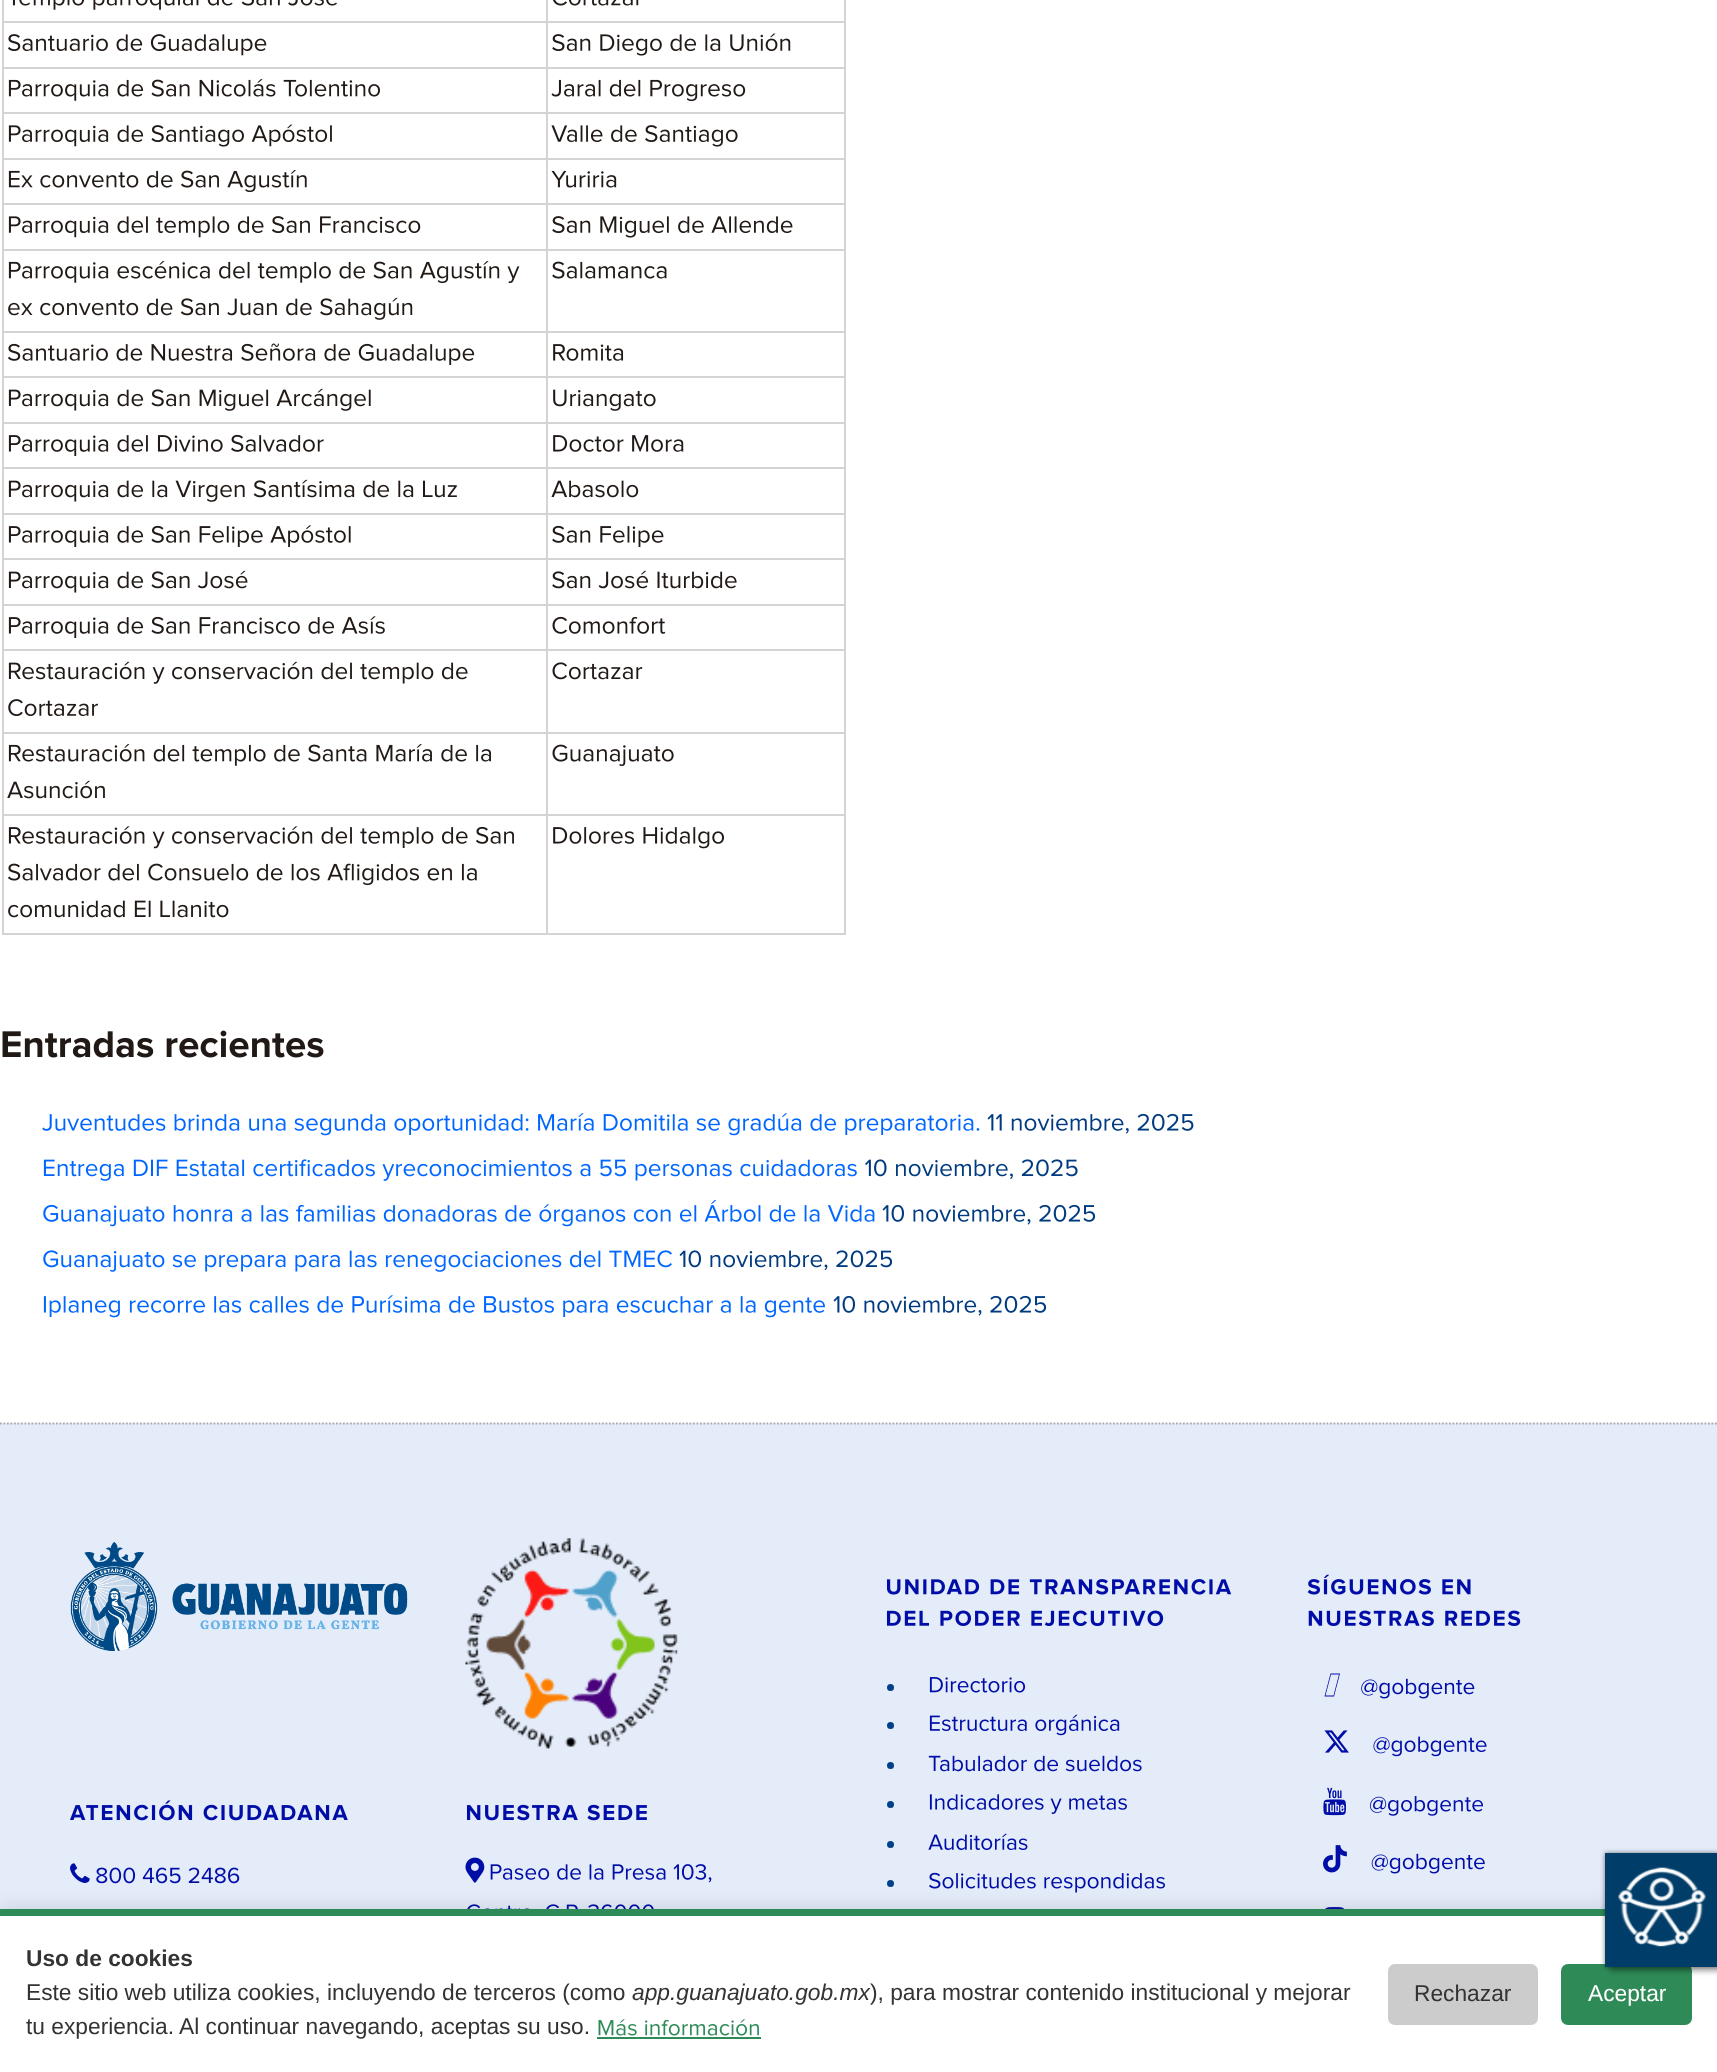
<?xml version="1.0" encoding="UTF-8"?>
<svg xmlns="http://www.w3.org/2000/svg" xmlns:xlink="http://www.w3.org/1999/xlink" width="1717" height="2072">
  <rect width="100%" height="100%" fill="#ffffff" />
  <rect y="1423" width="1717" height="486" fill="#e4ecfa" />
  <image x="70" y="1863" width="20" height="20" xlink:href="image54.png" />
  <image x="96" y="1867" width="144" height="17" xlink:href="image55.png" />
  <image x="465" y="1857" width="20" height="26" xlink:href="image57.png" />
  <image x="490" y="1864" width="222" height="19" xlink:href="image58.png" />
  <image x="467" y="1904" width="187" height="5" xlink:href="image59.png" />
  <circle cx="890.5" cy="1883.5" r="3.5" fill="#00408a" />
  <image x="929" y="1872" width="236" height="21" xlink:href="image67.png" />
  <image x="1325" y="1907" width="20" height="2" xlink:href="image77.png" />
  <rect y="1906" width="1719" height="163" fill="#000000" fill-opacity="0.1" filter="blur(9px)" />
  <rect y="1916" width="1717" height="156" fill="#ffffff" />
  <rect y="1909" width="1605" height="7" fill="#2e8b57" />
  <rect x="1561" y="1964" width="131" height="61" rx="7" fill="#2e8b57" />
  <rect x="1610" y="1859" width="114" height="113" fill="#000000" fill-opacity="0.25" filter="blur(2.5px)" />
  <rect x="1605" y="1853" width="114" height="114" fill="#000000" fill-opacity="0.5" filter="blur(2.5px)" />
  <rect x="1605" y="1853" width="112" height="114" fill="#003d68" />
  <image x="1618" y="1867" width="88" height="80" xlink:href="image1.png" />
  <rect x="546" y="21" width="299" height="2" fill="#d4d4d4" />
  <rect x="546" y="67" width="299" height="2" fill="#d4d4d4" />
  <rect x="546" y="112" width="299" height="2" fill="#d4d4d4" />
  <rect x="546" y="158" width="299" height="2" fill="#d4d4d4" />
  <rect x="546" y="203" width="299" height="2" fill="#d4d4d4" />
  <rect x="546" y="249" width="299" height="2" fill="#d4d4d4" />
  <rect x="546" y="331" width="299" height="2" fill="#d4d4d4" />
  <rect x="546" y="376" width="299" height="2" fill="#d4d4d4" />
  <rect x="546" y="422" width="299" height="2" fill="#d4d4d4" />
  <rect x="546" y="467" width="299" height="2" fill="#d4d4d4" />
  <rect x="546" y="513" width="299" height="2" fill="#d4d4d4" />
  <rect x="546" y="558" width="299" height="2" fill="#d4d4d4" />
  <rect x="546" y="604" width="299" height="2" fill="#d4d4d4" />
  <rect x="546" y="649" width="299" height="2" fill="#d4d4d4" />
  <rect x="546" y="732" width="299" height="2" fill="#d4d4d4" />
  <rect x="546" y="814" width="299" height="2" fill="#d4d4d4" />
  <rect x="844" y="814" width="2" height="121" fill="#d4d4d4" />
  <rect x="546" y="933" width="299" height="2" fill="#d4d4d4" />
  <rect x="546" y="814" width="2" height="121" fill="#d4d4d4" />
  <rect x="2" y="814" width="546" height="2" fill="#d4d4d4" />
  <rect x="546" y="732" width="2" height="84" fill="#d4d4d4" />
  <rect x="2" y="732" width="546" height="2" fill="#d4d4d4" />
  <rect x="546" y="649" width="2" height="84" fill="#d4d4d4" />
  <rect x="2" y="649" width="546" height="2" fill="#d4d4d4" />
  <rect x="546" y="604" width="2" height="47" fill="#d4d4d4" />
  <rect x="2" y="604" width="546" height="2" fill="#d4d4d4" />
  <rect x="546" y="558" width="2" height="48" fill="#d4d4d4" />
  <rect x="2" y="558" width="546" height="2" fill="#d4d4d4" />
  <rect x="546" y="513" width="2" height="47" fill="#d4d4d4" />
  <rect x="2" y="513" width="546" height="2" fill="#d4d4d4" />
  <rect x="546" y="467" width="2" height="48" fill="#d4d4d4" />
  <rect x="2" y="467" width="546" height="2" fill="#d4d4d4" />
  <rect x="546" y="422" width="2" height="47" fill="#d4d4d4" />
  <rect x="2" y="422" width="546" height="2" fill="#d4d4d4" />
  <rect x="546" y="376" width="2" height="48" fill="#d4d4d4" />
  <rect x="2" y="376" width="546" height="2" fill="#d4d4d4" />
  <rect x="546" y="331" width="2" height="47" fill="#d4d4d4" />
  <rect x="2" y="331" width="546" height="2" fill="#d4d4d4" />
  <rect x="546" y="249" width="2" height="84" fill="#d4d4d4" />
  <rect x="2" y="249" width="546" height="2" fill="#d4d4d4" />
  <rect x="546" y="203" width="2" height="47" fill="#d4d4d4" />
  <rect x="2" y="203" width="546" height="2" fill="#d4d4d4" />
  <rect x="546" y="158" width="2" height="47" fill="#d4d4d4" />
  <rect x="2" y="158" width="546" height="2" fill="#d4d4d4" />
  <rect x="546" y="112" width="2" height="47" fill="#d4d4d4" />
  <rect x="2" y="112" width="546" height="2" fill="#d4d4d4" />
  <rect x="546" y="67" width="2" height="47" fill="#d4d4d4" />
  <rect x="2" y="67" width="546" height="2" fill="#d4d4d4" />
  <rect x="546" y="21" width="2" height="47" fill="#d4d4d4" />
  <rect x="2" y="21" width="546" height="2" fill="#d4d4d4" />
  <rect x="2" y="933" width="546" height="2" fill="#d4d4d4" />
  <rect x="2" y="814" width="2" height="121" fill="#d4d4d4" />
  <rect x="2" y="732" width="2" height="84" fill="#d4d4d4" />
  <rect x="2" y="649" width="2" height="84" fill="#d4d4d4" />
  <rect x="2" y="604" width="2" height="47" fill="#d4d4d4" />
  <rect x="2" y="558" width="2" height="48" fill="#d4d4d4" />
  <rect x="2" y="513" width="2" height="47" fill="#d4d4d4" />
  <rect x="2" y="467" width="2" height="48" fill="#d4d4d4" />
  <rect x="2" y="422" width="2" height="47" fill="#d4d4d4" />
  <rect x="2" y="376" width="2" height="48" fill="#d4d4d4" />
  <rect x="2" y="331" width="2" height="47" fill="#d4d4d4" />
  <rect x="2" y="249" width="2" height="84" fill="#d4d4d4" />
  <rect x="2" y="203" width="2" height="47" fill="#d4d4d4" />
  <rect x="2" y="158" width="2" height="47" fill="#d4d4d4" />
  <rect x="2" y="112" width="2" height="47" fill="#d4d4d4" />
  <rect x="2" y="67" width="2" height="47" fill="#d4d4d4" />
  <rect x="2" width="2" height="68" fill="#d4d4d4" />
  <image x="8" y="34" width="259" height="22" xlink:href="image2.png" />
  <rect x="844" y="732" width="2" height="84" fill="#d4d4d4" />
  <rect x="844" y="649" width="2" height="84" fill="#d4d4d4" />
  <rect x="844" y="604" width="2" height="47" fill="#d4d4d4" />
  <rect x="844" y="558" width="2" height="48" fill="#d4d4d4" />
  <rect x="844" y="513" width="2" height="47" fill="#d4d4d4" />
  <rect x="844" y="467" width="2" height="48" fill="#d4d4d4" />
  <rect x="844" y="422" width="2" height="47" fill="#d4d4d4" />
  <rect x="844" y="376" width="2" height="48" fill="#d4d4d4" />
  <rect x="844" y="331" width="2" height="47" fill="#d4d4d4" />
  <rect x="844" y="249" width="2" height="84" fill="#d4d4d4" />
  <rect x="844" y="203" width="2" height="47" fill="#d4d4d4" />
  <rect x="844" y="158" width="2" height="47" fill="#d4d4d4" />
  <rect x="844" y="112" width="2" height="47" fill="#d4d4d4" />
  <rect x="844" y="67" width="2" height="47" fill="#d4d4d4" />
  <rect x="844" width="2" height="68" fill="#d4d4d4" />
  <image x="552" y="33" width="239" height="23" xlink:href="image3.png" />
  <image x="12" y="0" width="325" height="10" xlink:href="image4.png" />
  <rect x="546" width="2" height="23" fill="#d4d4d4" />
  <image x="553" y="0" width="86" height="6" xlink:href="image5.png" />
  <image x="8" y="79" width="372" height="22" xlink:href="image6.png" />
  <image x="551" y="79" width="195" height="23" xlink:href="image7.png" />
  <image x="8" y="124" width="324" height="23" xlink:href="image8.png" />
  <image x="551" y="125" width="187" height="22" xlink:href="image9.png" />
  <image x="8" y="170" width="299" height="23" xlink:href="image10.png" />
  <image x="551" y="170" width="66" height="18" xlink:href="image11.png" />
  <image x="8" y="216" width="413" height="22" xlink:href="image12.png" />
  <image x="552" y="216" width="241" height="22" xlink:href="image13.png" />
  <image x="8" y="261" width="512" height="23" xlink:href="image14.png" />
  <image x="8" y="297" width="405" height="23" xlink:href="image15.png" />
  <image x="552" y="261" width="115" height="18" xlink:href="image16.png" />
  <image x="8" y="343" width="467" height="22" xlink:href="image17.png" />
  <image x="553" y="344" width="71" height="17" xlink:href="image18.png" />
  <image x="8" y="388" width="363" height="23" xlink:href="image19.png" />
  <image x="553" y="389" width="103" height="22" xlink:href="image20.png" />
  <image x="8" y="434" width="316" height="22" xlink:href="image21.png" />
  <image x="553" y="435" width="131" height="17" xlink:href="image22.png" />
  <image x="8" y="479" width="449" height="23" xlink:href="image23.png" />
  <image x="551" y="480" width="88" height="18" xlink:href="image24.png" />
  <image x="8" y="525" width="343" height="22" xlink:href="image25.png" />
  <image x="552" y="525" width="112" height="22" xlink:href="image26.png" />
  <image x="8" y="570" width="240" height="23" xlink:href="image27.png" />
  <image x="552" y="570" width="185" height="19" xlink:href="image28.png" />
  <image x="8" y="616" width="377" height="22" xlink:href="image29.png" />
  <image x="552" y="616" width="114" height="18" xlink:href="image30.png" />
  <image x="8" y="661" width="460" height="23" xlink:href="image31.png" />
  <image x="8" y="699" width="90" height="17" xlink:href="image32.png" />
  <image x="552" y="662" width="91" height="18" xlink:href="image33.png" />
  <image x="8" y="744" width="483" height="22" xlink:href="image34.png" />
  <image x="7" y="780" width="98" height="19" xlink:href="image35.png" />
  <image x="552" y="744" width="122" height="22" xlink:href="image36.png" />
  <image x="8" y="826" width="506" height="23" xlink:href="image37.png" />
  <image x="8" y="863" width="469" height="23" xlink:href="image38.png" />
  <image x="8" y="900" width="221" height="18" xlink:href="image39.png" />
  <image x="553" y="827" width="171" height="22" xlink:href="image40.png" />
  <image x="2" y="1030" width="322" height="28" xlink:href="image41.png" />
  <image x="42" y="1113" width="938" height="23" xlink:href="image42.png" />
  <image x="987" y="1113" width="207" height="21" xlink:href="image43.png" />
  <image x="43" y="1159" width="814" height="22" xlink:href="image44.png" />
  <image x="865" y="1159" width="213" height="20" xlink:href="image45.png" />
  <image x="43" y="1200" width="832" height="27" xlink:href="image46.png" />
  <image x="882" y="1204" width="214" height="21" xlink:href="image47.png" />
  <image x="43" y="1250" width="629" height="22" xlink:href="image48.png" />
  <image x="679" y="1250" width="214" height="20" xlink:href="image49.png" />
  <image x="43" y="1295" width="782" height="23" xlink:href="image50.png" />
  <image x="833" y="1295" width="214" height="21" xlink:href="image47.png" />
  <path d="M 0 1423.5 h 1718.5" fill="none" stroke="#ababab" stroke-width="1.8" stroke-dasharray="1.75 1.75" />
  <image x="70" y="1541" width="338" height="110" xlink:href="image51.png" />
  <image x="465" y="1538" width="213" height="211" xlink:href="image52.png" />
  <image x="70" y="1800" width="278" height="21" xlink:href="image53.png" />
  <image x="466" y="1804" width="181" height="17" xlink:href="image56.png" />
  <image x="886" y="1579" width="346" height="16" xlink:href="image60.png" />
  <image x="886" y="1610" width="278" height="16" xlink:href="image61.png" />
  <circle cx="890.5" cy="1687.5" r="3.5" fill="#00408a" />
  <image x="929" y="1677" width="97" height="16" xlink:href="image62.png" />
  <circle cx="890.5" cy="1725.5" r="3.5" fill="#00408a" />
  <image x="929" y="1714" width="191" height="22" xlink:href="image63.png" />
  <circle cx="890.5" cy="1765.5" r="3.5" fill="#00408a" />
  <image x="928" y="1755" width="214" height="17" xlink:href="image64.png" />
  <circle cx="890.5" cy="1804.5" r="3.5" fill="#00408a" />
  <image x="929" y="1794" width="198" height="20" xlink:href="image65.png" />
  <circle cx="890.5" cy="1844.5" r="3.5" fill="#00408a" />
  <image x="928" y="1833" width="100" height="17" xlink:href="image66.png" />
  <image x="1307" y="1574" width="164" height="21" xlink:href="image68.png" />
  <image x="1308" y="1610" width="213" height="16" xlink:href="image69.png" />
  <path d="M 1334 1696.5 l 6 -23 h -9.5 l -6 23 z m -0.5 -1 h -8 l 5.5 -21 h 8 z" fill="#000ea7" />
  <image x="1361" y="1678" width="114" height="21" xlink:href="image70.png" />
  <image x="1324" y="1730" width="25" height="23" xlink:href="image71.png" />
  <image x="1373" y="1736" width="114" height="21" xlink:href="image72.png" />
  <image x="1323" y="1787" width="23" height="29" xlink:href="image73.png" />
  <image x="1369" y="1796" width="114" height="20" xlink:href="image74.png" />
  <image x="1323" y="1845" width="24" height="28" xlink:href="image75.png" />
  <image x="1371" y="1853" width="114" height="21" xlink:href="image76.png" />
  <image x="598" y="2019" width="161" height="17" xlink:href="image78.png" />
  <rect x="597" y="2037" width="164" height="2" fill="#2e8b57" />
  <rect x="1388" y="1964" width="150" height="61" rx="7" fill="#cccccc" />
  <text x="26" y="1966" style="font-family: Liberation Sans; font-size: 22.75px; font-weight: bold; fill: #333333">Uso de cookies</text>
  <text x="26" y="2000" style="font-family: Liberation Sans; font-size: 22.75px; fill: #333333">Este sitio web utiliza cookies, incluyendo de terceros (como</text>
  <text x="632" y="2000" style="font-family: Liberation Sans; font-size: 22.75px; font-style: italic; fill: #333333">app.guanajuato.gob.mx</text>
  <text x="870" y="2000" style="font-family: Liberation Sans; font-size: 22.75px; fill: #333333">), para mostrar contenido institucional y mejorar</text>
  <text x="26" y="2034" style="font-family: Liberation Sans; font-size: 22.75px; fill: #333333">tu experiencia. Al continuar navegando, aceptas su uso.</text>
  <text x="1414" y="2001" style="font-family: Liberation Sans; font-size: 22.75px; fill: #333333">Rechazar</text>
  <text x="1588" y="2001" style="font-family: Liberation Sans; font-size: 22.75px; fill: #ffffff">Aceptar</text>
</svg>
